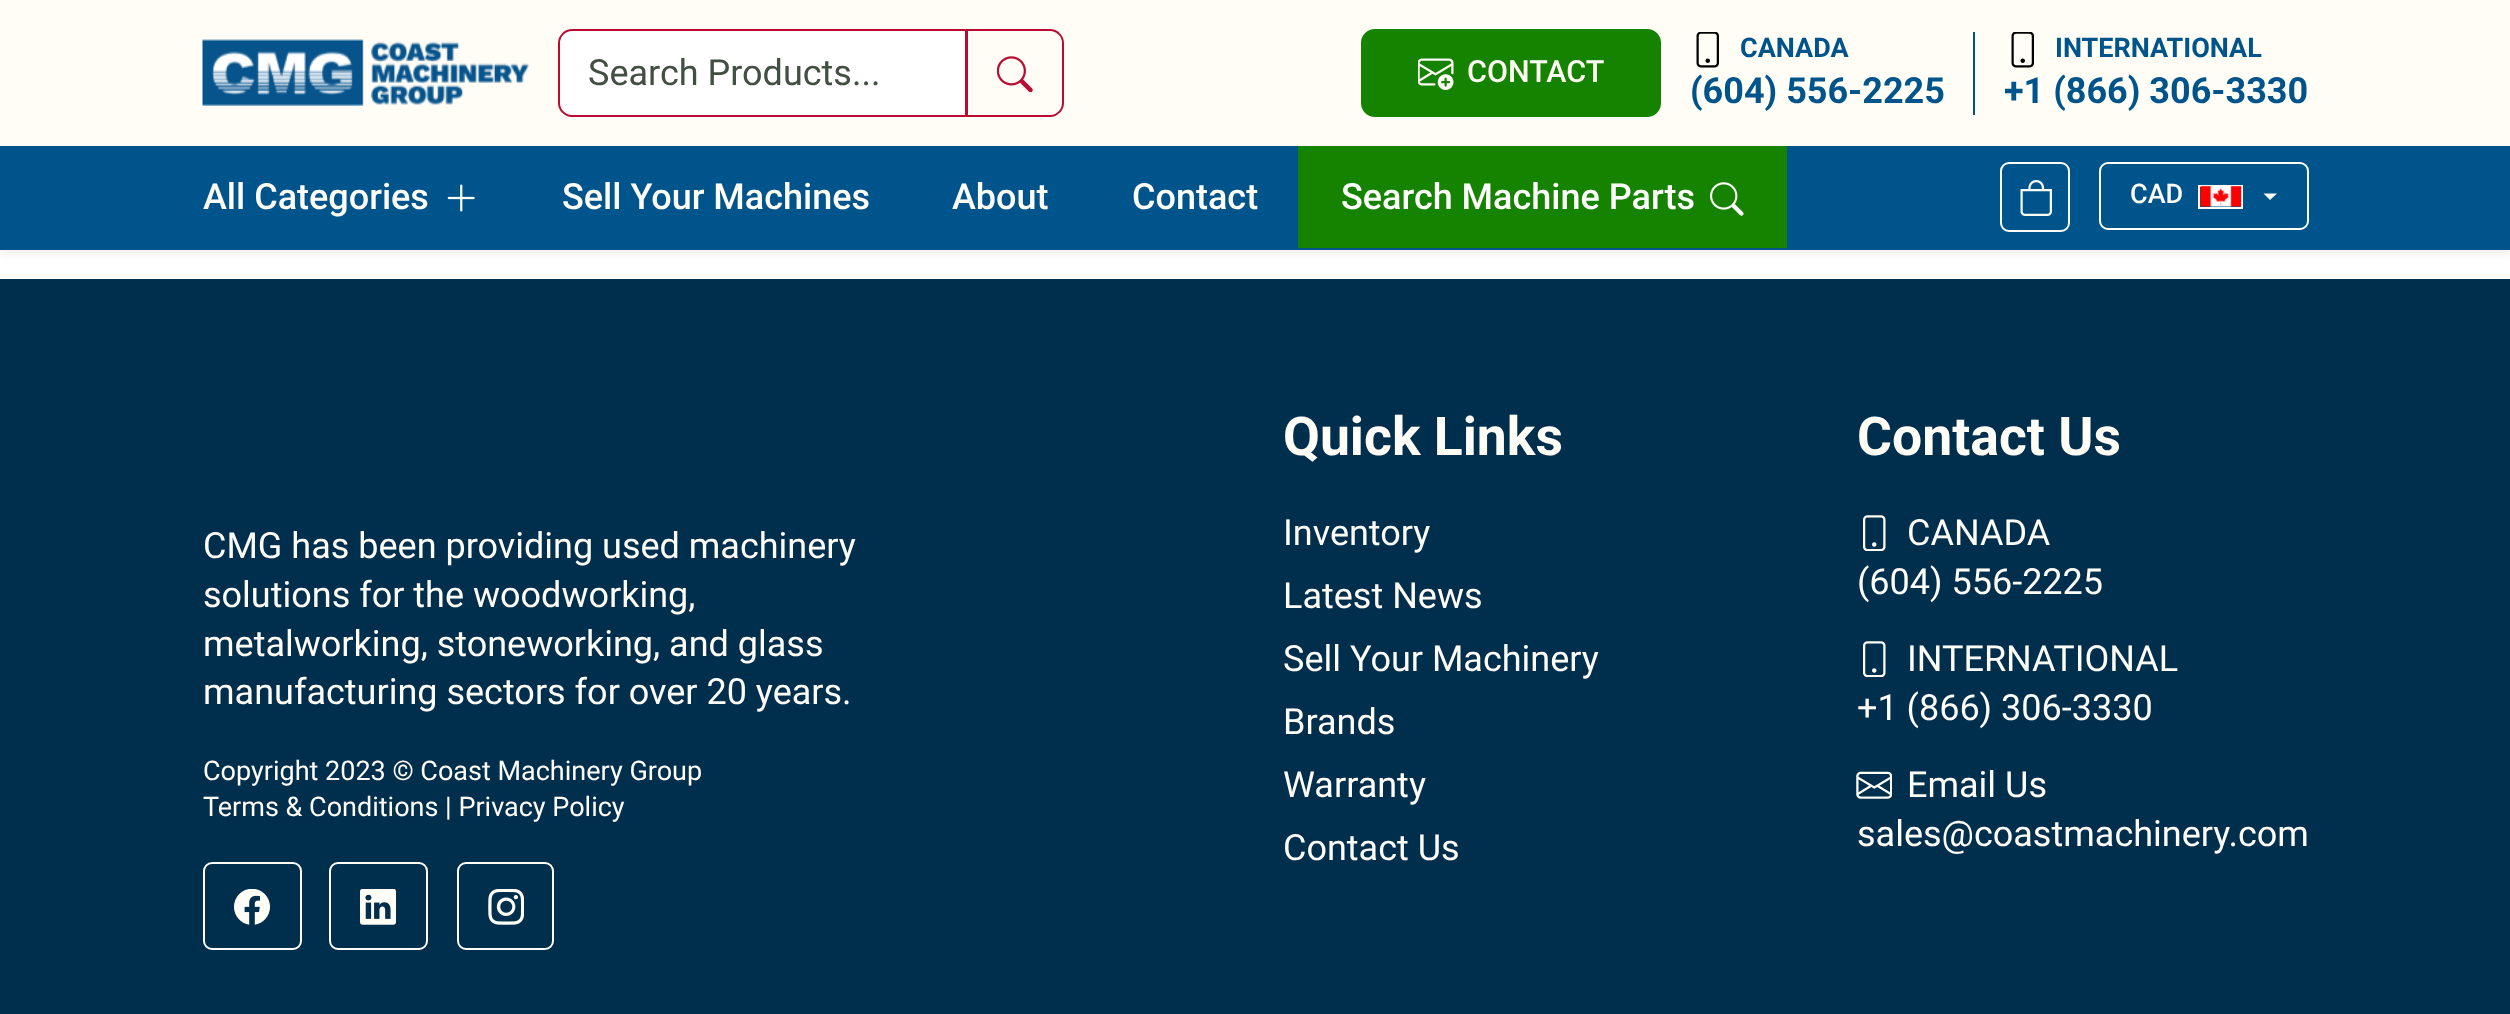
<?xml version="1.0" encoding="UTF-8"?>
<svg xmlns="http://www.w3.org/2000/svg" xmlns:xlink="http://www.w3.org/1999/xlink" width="2510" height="1014">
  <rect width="100%" height="100%" fill="#ffffff" />
  <rect y="5" width="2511" height="249" fill="#031403" fill-opacity="0.07" filter="blur(4.5px)" />
  <rect y="146" width="2510" height="104" fill="#00548c" />
  <rect width="2510" height="146" fill="#fffdf6" />
  <image x="202" y="39" width="327" height="67" xlink:href="image1.png" />
  <path d="M 571 32 h 394 v 83 h -394 c -6 0 -11 -5 -11 -11 v -61 c 0 -6 5 -11 11 -11 z" fill="#ffffff" />
  <path d="M 572 30 h 395 v 86 h -395 c -7 0 -13 -6 -13 -13 v -60 c 0 -7 6 -13 13 -13 z" fill="none" stroke="#ba0c32" stroke-width="2" />
  <path d="M 966 30 h 84 c 7 0 13 6 13 13 v 60 c 0 7 -6 13 -13 13 h -84 z" fill="none" stroke="#ba0c32" stroke-width="2" />
  <image x="997" y="56" width="36" height="36" xlink:href="image2.png" />
  <rect x="1362" y="30" width="298" height="86" rx="13" fill="#158300" stroke="#158300" stroke-width="2" />
  <image x="1418" y="58" width="36" height="32" xlink:href="image3.png" />
  <rect x="1973" y="32" width="2" height="83" fill="#00548c" />
  <image x="1696" y="32" width="23" height="36" xlink:href="image4.png" />
  <image x="2011" y="32" width="23" height="36" xlink:href="image4.png" />
  <image x="447" y="184" width="28" height="28" xlink:href="image5.png" />
  <rect x="1298" y="146" width="489" height="102" fill="#158300" />
  <image x="1710" y="182" width="34" height="34" xlink:href="image6.png" />
  <rect x="2001" y="163" width="68" height="68" rx="8" fill="none" stroke="#fffdf6" stroke-width="2" />
  <image x="2020" y="180" width="32" height="36" xlink:href="image7.png" />
  <rect x="2100" y="163" width="208" height="66" rx="8" fill="none" stroke="#fffdf6" stroke-width="2" />
  <rect x="2199" y="186" width="43" height="22" fill="none" stroke="#fffdf6" stroke-width="2" />
  <image x="2200" y="186" width="42" height="21" xlink:href="image8.png" />
  <path d="M 2263.5 193.5 h 13.5 l -7 6.5 z" fill="#fffdf6" />
  <rect y="279" width="2510" height="735" fill="#002e4d" />
  <rect x="204" y="863" width="97" height="86" rx="8" fill="none" stroke="#fffdf6" stroke-width="2" />
  <image x="234" y="889" width="36" height="36" xlink:href="image9.png" />
  <rect x="330" y="863" width="97" height="86" rx="8" fill="none" stroke="#fffdf6" stroke-width="2" />
  <image x="360" y="889" width="36" height="36" xlink:href="image10.png" />
  <rect x="458" y="863" width="95" height="86" rx="8" fill="none" stroke="#fffdf6" stroke-width="2" />
  <image x="488" y="889" width="36" height="36" xlink:href="image11.png" />
  <image x="1863" y="515" width="23" height="36" xlink:href="image12.png" />
  <image x="1863" y="641" width="23" height="36" xlink:href="image12.png" />
  <image x="1856" y="771" width="36" height="28" xlink:href="image13.png" />
  <text x="588" y="85" style="font-family: Roboto; font-size: 36px; fill: #424f42">Search Products...</text>
  <text x="1467" y="82" style="font-family: Roboto; font-size: 30.5px; font-weight: 500; fill: #fffdf6">CONTACT</text>
  <text x="1740" y="57" style="font-family: Roboto; font-size: 27px; font-weight: bold; fill: #00548c">CANADA</text>
  <text x="1690" y="103" style="font-family: Roboto; font-size: 36px; font-weight: bold; fill: #00548c">(604) 556-2225</text>
  <text x="2055" y="57" style="font-family: Roboto; font-size: 27px; font-weight: bold; fill: #00548c">INTERNATIONAL</text>
  <text x="2004" y="103" style="font-family: Roboto; font-size: 36px; font-weight: bold; fill: #00548c">+1 (866) 306-3330</text>
  <text x="203" y="209" style="font-family: Roboto; font-size: 36px; font-weight: 500; fill: #fffdf6">All Categories</text>
  <text x="562" y="209" style="font-family: Roboto; font-size: 36px; font-weight: 500; fill: #fffdf6">Sell Your Machines</text>
  <text x="952" y="209" style="font-family: Roboto; font-size: 36px; font-weight: 500; fill: #fffdf6">About</text>
  <text x="1132" y="209" style="font-family: Roboto; font-size: 36px; font-weight: 500; fill: #fffdf6">Contact</text>
  <text x="1341" y="209" style="font-family: Roboto; font-size: 36px; font-weight: 500; fill: #ffffff">Search Machine Parts</text>
  <text x="2130" y="203" style="font-family: Roboto; font-size: 27px; font-weight: 500; fill: #fffdf6">CAD</text>
  <text x="203" y="558" style="font-family: Roboto; font-size: 36px; fill: #fffdf6">CMG has been providing used machinery</text>
  <text x="203" y="607" style="font-family: Roboto; font-size: 36px; fill: #fffdf6">solutions for the woodworking,</text>
  <text x="203" y="656" style="font-family: Roboto; font-size: 36px; fill: #fffdf6">metalworking, stoneworking, and glass</text>
  <text x="203" y="704" style="font-family: Roboto; font-size: 36px; fill: #fffdf6">manufacturing sectors for over 20 years.</text>
  <text x="203" y="780" style="font-family: Roboto; font-size: 27px; fill: #fffdf6">Copyright 2023 © Coast Machinery Group</text>
  <text x="203" y="816" style="font-family: Roboto; font-size: 27px; fill: #fffdf6">Terms &amp; Conditions | Privacy Policy</text>
  <text x="1283" y="455" style="font-family: Roboto; font-size: 53.5px; font-weight: bold; fill: #fffdf6">Quick Links</text>
  <text x="1283" y="545" style="font-family: Roboto; font-size: 36px; fill: #fffdf6">Inventory</text>
  <text x="1283" y="608" style="font-family: Roboto; font-size: 36px; fill: #fffdf6">Latest News</text>
  <text x="1283" y="671" style="font-family: Roboto; font-size: 36px; fill: #fffdf6">Sell Your Machinery</text>
  <text x="1283" y="734" style="font-family: Roboto; font-size: 36px; fill: #fffdf6">Brands</text>
  <text x="1283" y="797" style="font-family: Roboto; font-size: 36px; fill: #fffdf6">Warranty</text>
  <text x="1283" y="860" style="font-family: Roboto; font-size: 36px; fill: #fffdf6">Contact Us</text>
  <text x="1857" y="455" style="font-family: Roboto; font-size: 53.5px; font-weight: bold; fill: #fffdf6">Contact Us</text>
  <text x="1907" y="545" style="font-family: Roboto; font-size: 36px; fill: #fffdf6">CANADA</text>
  <text x="1857" y="594" style="font-family: Roboto; font-size: 36px; fill: #fffdf6">(604) 556-2225</text>
  <text x="1907" y="671" style="font-family: Roboto; font-size: 36px; fill: #fffdf6">INTERNATIONAL</text>
  <text x="1857" y="720" style="font-family: Roboto; font-size: 36px; fill: #fffdf6">+1 (866) 306-3330</text>
  <text x="1907" y="797" style="font-family: Roboto; font-size: 36px; fill: #fffdf6">Email Us</text>
  <text x="1857" y="846" style="font-family: Roboto; font-size: 36px; fill: #fffdf6">sales@coastmachinery.com</text>
</svg>
